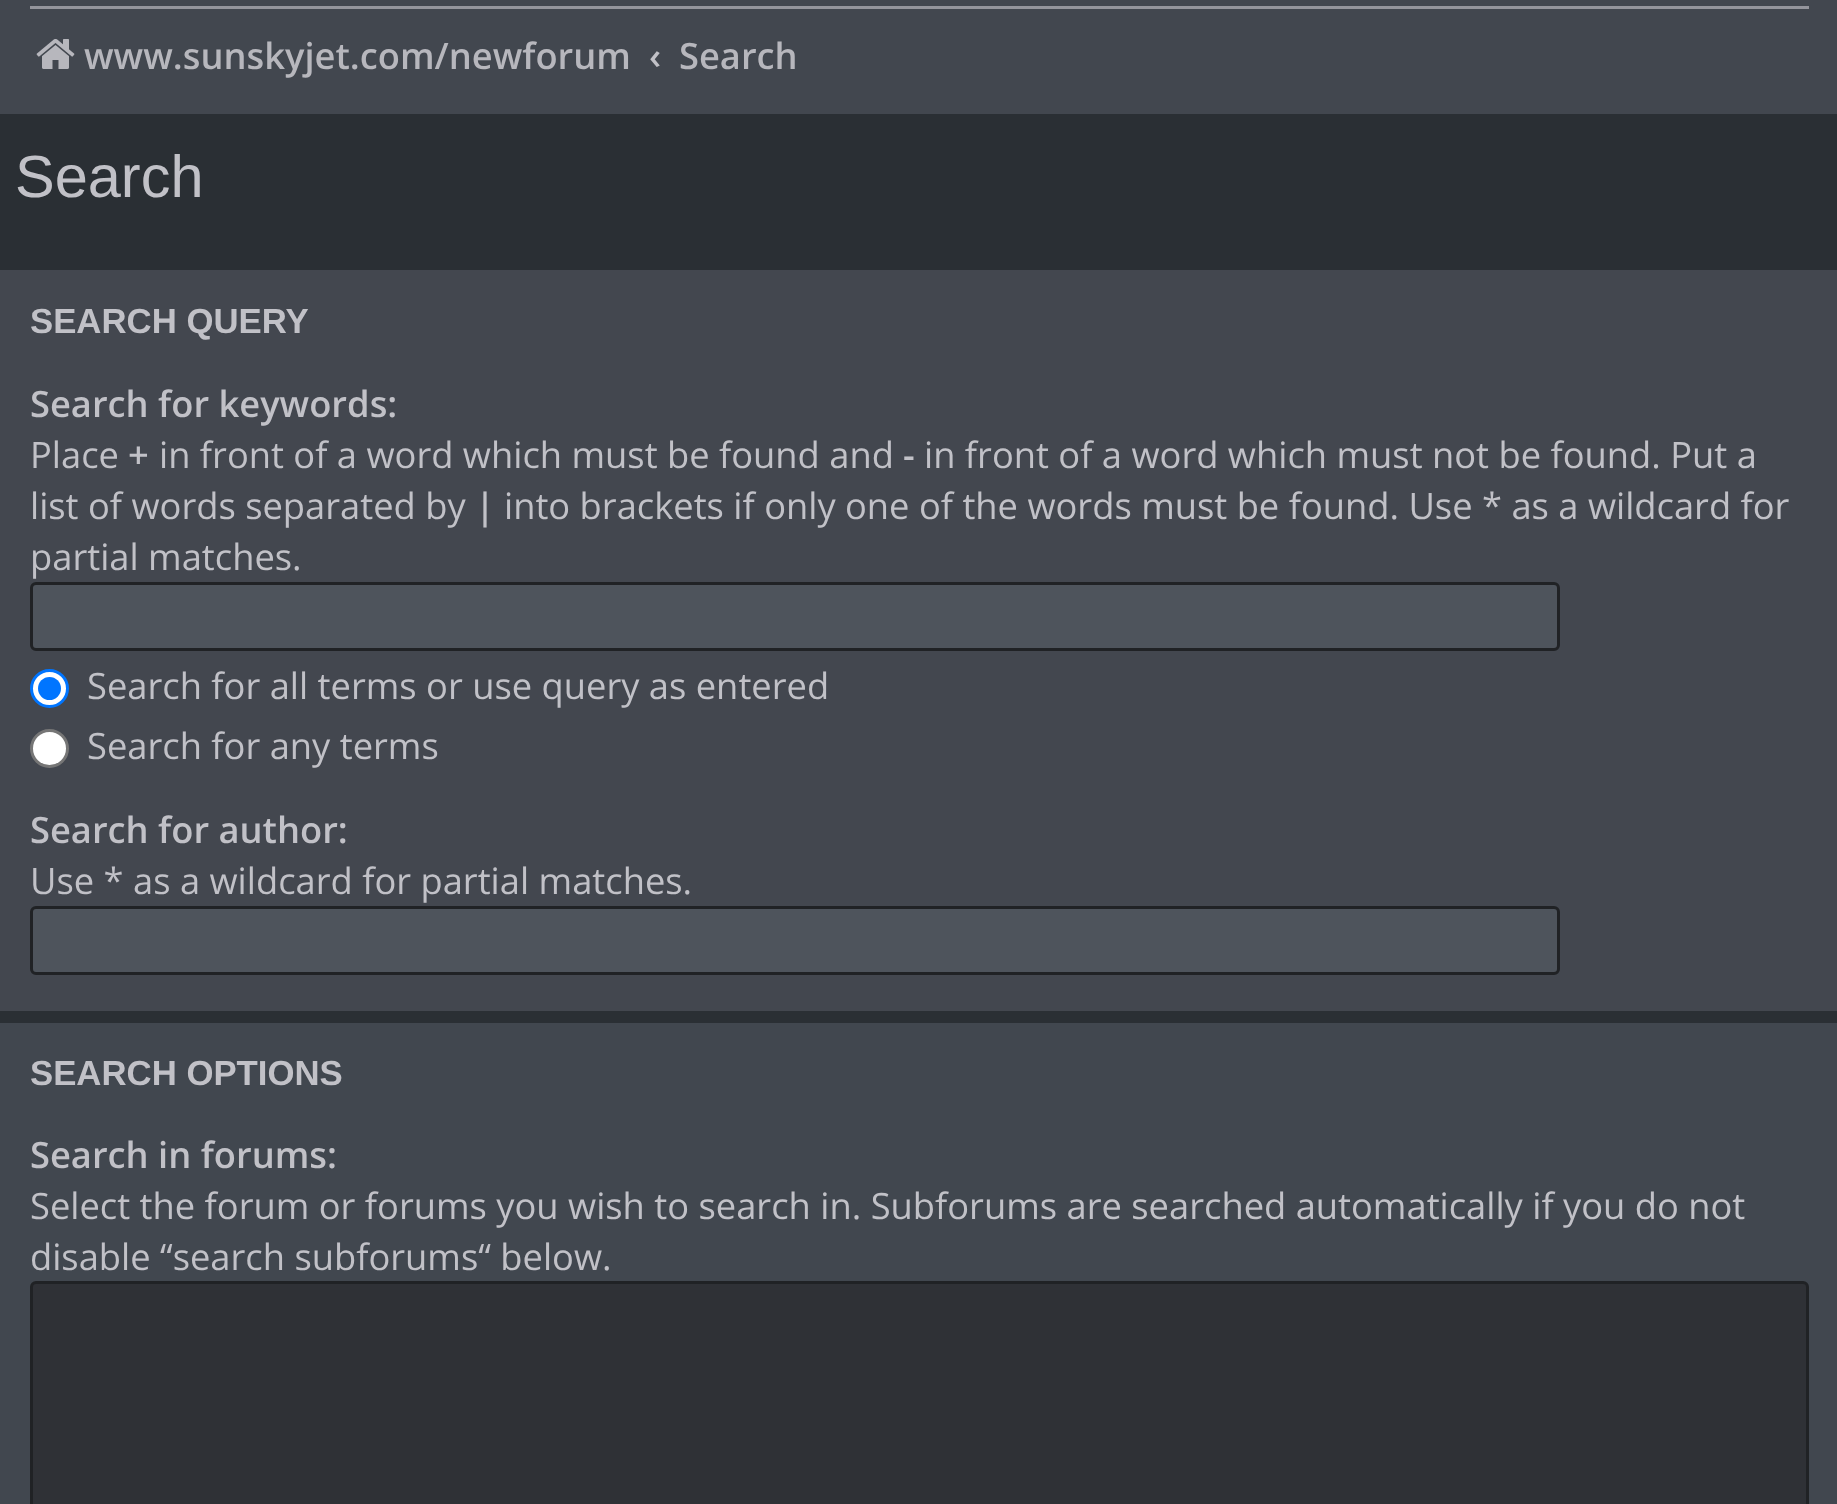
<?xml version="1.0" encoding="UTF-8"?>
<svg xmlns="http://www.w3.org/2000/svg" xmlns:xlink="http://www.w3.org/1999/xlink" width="1837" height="1504">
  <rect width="100%" height="100%" fill="#2a2f34" />
  <rect width="1837" height="114" fill="#42474f" />
  <rect x="30" y="6" width="1779" height="3" fill="#94959c" />
  <image x="36" y="39" width="39" height="30" xlink:href="image1.png" />
  <rect y="270" width="1837" height="741" fill="#43474f" />
  <rect x="31.5" y="583.5" width="1527" height="66" rx="4.5" fill="#4e545c" stroke="#202225" stroke-width="3" />
  <circle cx="49.5" cy="688.5" r="18" fill="#ffffff" stroke="#0075ff" stroke-width="3" />
  <circle cx="49.5" cy="688.5" r="11.5" fill="#0075ff" />
  <circle cx="49.5" cy="748.5" r="18" fill="#ffffff" stroke="#767676" stroke-width="3" />
  <rect x="31.5" y="907.5" width="1527" height="66" rx="4.5" fill="#4e545c" stroke="#202225" stroke-width="3" />
  <rect y="1023" width="1837" height="481" fill="#41474f" />
  <rect x="31.5" y="1282.5" width="1776" height="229" rx="4.5" fill="#2f3136" stroke="#202225" stroke-width="3" />
  <text x="84" y="69" style="font-family: Open Sans; font-size: 36.3px; font-weight: 600; fill: #b7b7bd">www.sunskyjet.com/newforum</text>
  <text x="649" y="69" style="font-family: Open Sans; font-size: 36.3px; font-weight: 600; fill: #c1c1c7">‹</text>
  <text x="679" y="69" style="font-family: Open Sans; font-size: 36.3px; font-weight: 600; fill: #b7b7bd">Search</text>
  <text x="15" y="197" style="font-family: Liberation Sans; font-size: 59.5px; fill: #c1c1c7">Search</text>
  <text x="30" y="333" style="font-family: Liberation Sans; font-size: 34.75px; font-weight: bold; fill: #c1c1c7">SEARCH QUERY</text>
  <text x="30" y="417" style="font-family: Open Sans; font-size: 36.3px; font-weight: 600; fill: #c1c1c7">Search for keywords:</text>
  <text x="30" y="468" style="font-family: Open Sans; font-size: 36.3px; fill: #c1c1c7">Place</text>
  <text x="128" y="468" style="font-family: Open Sans; font-size: 36.3px; font-weight: 600; fill: #c1c1c7">+</text>
  <text x="159" y="468" style="font-family: Open Sans; font-size: 36.3px; fill: #c1c1c7">in front of a word which must be found and</text>
  <text x="903" y="468" style="font-family: Open Sans; font-size: 36.3px; font-weight: 600; fill: #c1c1c7">-</text>
  <text x="924" y="468" style="font-family: Open Sans; font-size: 36.3px; fill: #c1c1c7">in front of a word which must not be found. Put a</text>
  <text x="30" y="519" style="font-family: Open Sans; font-size: 36.3px; fill: #c1c1c7">list of words separated by</text>
  <text x="475" y="519" style="font-family: Open Sans; font-size: 36.3px; font-weight: 600; fill: #c1c1c7">|</text>
  <text x="504" y="519" style="font-family: Open Sans; font-size: 36.3px; fill: #c1c1c7">into brackets if only one of the words must be found. Use * as a wildcard for</text>
  <text x="30" y="570" style="font-family: Open Sans; font-size: 36.3px; fill: #c1c1c7">partial matches.</text>
  <text x="87" y="699" style="font-family: Open Sans; font-size: 36.3px; fill: #c1c1c7">Search for all terms or use query as entered</text>
  <text x="87" y="759" style="font-family: Open Sans; font-size: 36.3px; fill: #c1c1c7">Search for any terms</text>
  <text x="30" y="843" style="font-family: Open Sans; font-size: 36.3px; font-weight: 600; fill: #c1c1c7">Search for author:</text>
  <text x="30" y="894" style="font-family: Open Sans; font-size: 36.3px; fill: #c1c1c7">Use * as a wildcard for partial matches.</text>
  <text x="30" y="1085" style="font-family: Liberation Sans; font-size: 34.75px; font-weight: bold; fill: #c1c1c7">SEARCH OPTIONS</text>
  <text x="30" y="1168" style="font-family: Open Sans; font-size: 36.3px; font-weight: 600; fill: #c1c1c7">Search in forums:</text>
  <text x="30" y="1219" style="font-family: Open Sans; font-size: 36.3px; fill: #c1c1c7">Select the forum or forums you wish to search in. Subforums are searched automatically if you do not</text>
  <text x="30" y="1270" style="font-family: Open Sans; font-size: 36.3px; fill: #c1c1c7">disable “search subforums“ below.</text>
</svg>
